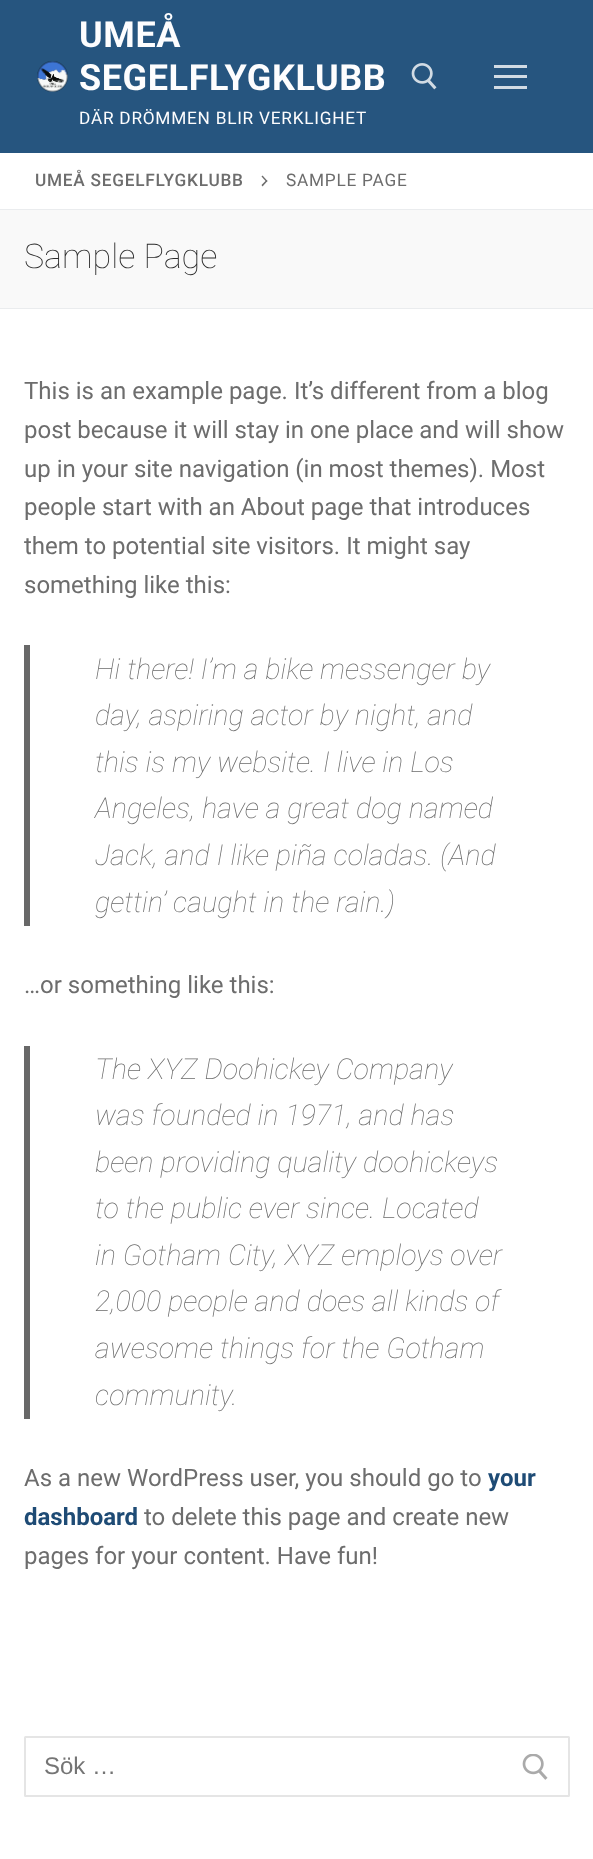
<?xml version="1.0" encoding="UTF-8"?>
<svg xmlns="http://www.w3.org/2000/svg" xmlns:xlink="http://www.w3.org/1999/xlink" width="593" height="1859">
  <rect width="100%" height="100%" fill="#ffffff" />
  <rect width="593" height="153" fill="#26557f" />
  <image x="37" y="61" width="31" height="31" xlink:href="image1.png" />
  <image x="411" y="63" width="26" height="27" xlink:href="image2.png" />
  <rect x="494" y="75" width="33" height="3" fill="#d1dbe4" />
  <rect x="494" y="65" width="33" height="3" fill="#d1dbe4" />
  <rect x="494" y="86" width="33" height="3" fill="#d1dbe4" />
  <rect y="209" width="593" height="1" fill="#eaecee" />
  <path d="M 267.5 181 l -5 5.5 l -1 -1.5 l 5 -5 z" fill="#6d6d6d" />
  <path d="M 267.5 181 l -1 1 l -5 -5.5 l 1 -1 z" fill="#6d6d6d" />
  <rect y="210" width="593" height="98" fill="#f9f9f9" />
  <rect y="308" width="593" height="1" fill="#eaecee" />
  <rect x="24" y="645" width="6" height="281" fill="#686868" />
  <rect x="24" y="1046" width="6" height="373" fill="#686868" />
  <rect x="25" y="1737" width="544" height="59" rx="0.5" fill="none" stroke="#e5e5e5" stroke-width="2" />
  <image x="522" y="1754" width="26" height="26" xlink:href="image3.png" />
  <text x="79" y="47" style="font-family: Roboto; font-size: 36px; font-weight: bold; letter-spacing: 0.6px; fill: #fdfdfe">UMEÅ</text>
  <text x="79" y="90" style="font-family: Roboto; font-size: 36px; font-weight: bold; letter-spacing: 0.6px; fill: #fdfdfe">SEGELFLYGKLUBB</text>
  <text x="79" y="124" style="font-family: Roboto; font-size: 17.25px; letter-spacing: 0.75px; fill: #fdfdfe">DÄR DRÖMMEN BLIR VERKLIGHET</text>
  <text x="35" y="186" style="font-family: Roboto; font-size: 17.25px; font-weight: 500; letter-spacing: 0.75px; fill: #6d6d6d">UMEÅ SEGELFLYGKLUBB</text>
  <text x="286" y="186" style="font-family: Roboto; font-size: 17.25px; letter-spacing: 0.75px; fill: #6d6d6d">SAMPLE PAGE</text>
  <text x="24" y="268" style="font-family: Roboto; font-size: 34px; font-weight: 100; fill: #2b2b2b">Sample Page</text>
  <text x="24" y="399" style="font-family: Roboto; font-size: 24px; fill: #6d6d6d">This is an example page. It’s different from a blog</text>
  <text x="24" y="438" style="font-family: Roboto; font-size: 24px; fill: #6d6d6d">post because it will stay in one place and will show</text>
  <text x="24" y="477" style="font-family: Roboto; font-size: 24px; fill: #6d6d6d">up in your site navigation (in most themes). Most</text>
  <text x="24" y="515" style="font-family: Roboto; font-size: 24px; fill: #6d6d6d">people start with an About page that introduces</text>
  <text x="24" y="554" style="font-family: Roboto; font-size: 24px; fill: #6d6d6d">them to potential site visitors. It might say</text>
  <text x="24" y="593" style="font-family: Roboto; font-size: 24px; fill: #6d6d6d">something like this:</text>
  <text x="95" y="679" style="font-family: Roboto; font-size: 28.75px; font-weight: 100; font-style: italic; fill: #6d6d6d">Hi there! I’m a bike messenger by</text>
  <text x="95" y="725" style="font-family: Roboto; font-size: 28.75px; font-weight: 100; font-style: italic; fill: #6d6d6d">day, aspiring actor by night, and</text>
  <text x="95" y="772" style="font-family: Roboto; font-size: 28.75px; font-weight: 100; font-style: italic; fill: #6d6d6d">this is my website. I live in Los</text>
  <text x="95" y="818" style="font-family: Roboto; font-size: 28.75px; font-weight: 100; font-style: italic; fill: #6d6d6d">Angeles, have a great dog named</text>
  <text x="95" y="865" style="font-family: Roboto; font-size: 28.75px; font-weight: 100; font-style: italic; fill: #6d6d6d">Jack, and I like piña coladas. (And</text>
  <text x="95" y="912" style="font-family: Roboto; font-size: 28.75px; font-weight: 100; font-style: italic; fill: #6d6d6d">gettin’ caught in the rain.)</text>
  <text x="24" y="993" style="font-family: Roboto; font-size: 24px; fill: #6d6d6d">…or something like this:</text>
  <text x="95" y="1079" style="font-family: Roboto; font-size: 28.75px; font-weight: 100; font-style: italic; fill: #6d6d6d">The XYZ Doohickey Company</text>
  <text x="95" y="1125" style="font-family: Roboto; font-size: 28.75px; font-weight: 100; font-style: italic; fill: #6d6d6d">was founded in 1971, and has</text>
  <text x="95" y="1172" style="font-family: Roboto; font-size: 28.75px; font-weight: 100; font-style: italic; fill: #6d6d6d">been providing quality doohickeys</text>
  <text x="95" y="1218" style="font-family: Roboto; font-size: 28.75px; font-weight: 100; font-style: italic; fill: #6d6d6d">to the public ever since. Located</text>
  <text x="95" y="1265" style="font-family: Roboto; font-size: 28.75px; font-weight: 100; font-style: italic; fill: #6d6d6d">in Gotham City, XYZ employs over</text>
  <text x="95" y="1311" style="font-family: Roboto; font-size: 28.75px; font-weight: 100; font-style: italic; fill: #6d6d6d">2,000 people and does all kinds of</text>
  <text x="95" y="1358" style="font-family: Roboto; font-size: 28.75px; font-weight: 100; font-style: italic; fill: #6d6d6d">awesome things for the Gotham</text>
  <text x="95" y="1405" style="font-family: Roboto; font-size: 28.75px; font-weight: 100; font-style: italic; fill: #6d6d6d">community.</text>
  <text x="24" y="1486" style="font-family: Roboto; font-size: 24px; fill: #6d6d6d">As a new WordPress user, you should go to</text>
  <text x="488" y="1486" style="font-family: Roboto; font-size: 24px; font-weight: bold; fill: #1e4b75">your</text>
  <text x="24" y="1525" style="font-family: Roboto; font-size: 24px; font-weight: bold; fill: #1e4b75">dashboard</text>
  <text x="144" y="1525" style="font-family: Roboto; font-size: 24px; fill: #6d6d6d">to delete this page and create new</text>
  <text x="24" y="1564" style="font-family: Roboto; font-size: 24px; fill: #6d6d6d">pages for your content. Have fun!</text>
  <text x="44" y="1774" style="font-family: Liberation Sans; font-size: 24px; fill: #757575">Sök …</text>
</svg>
